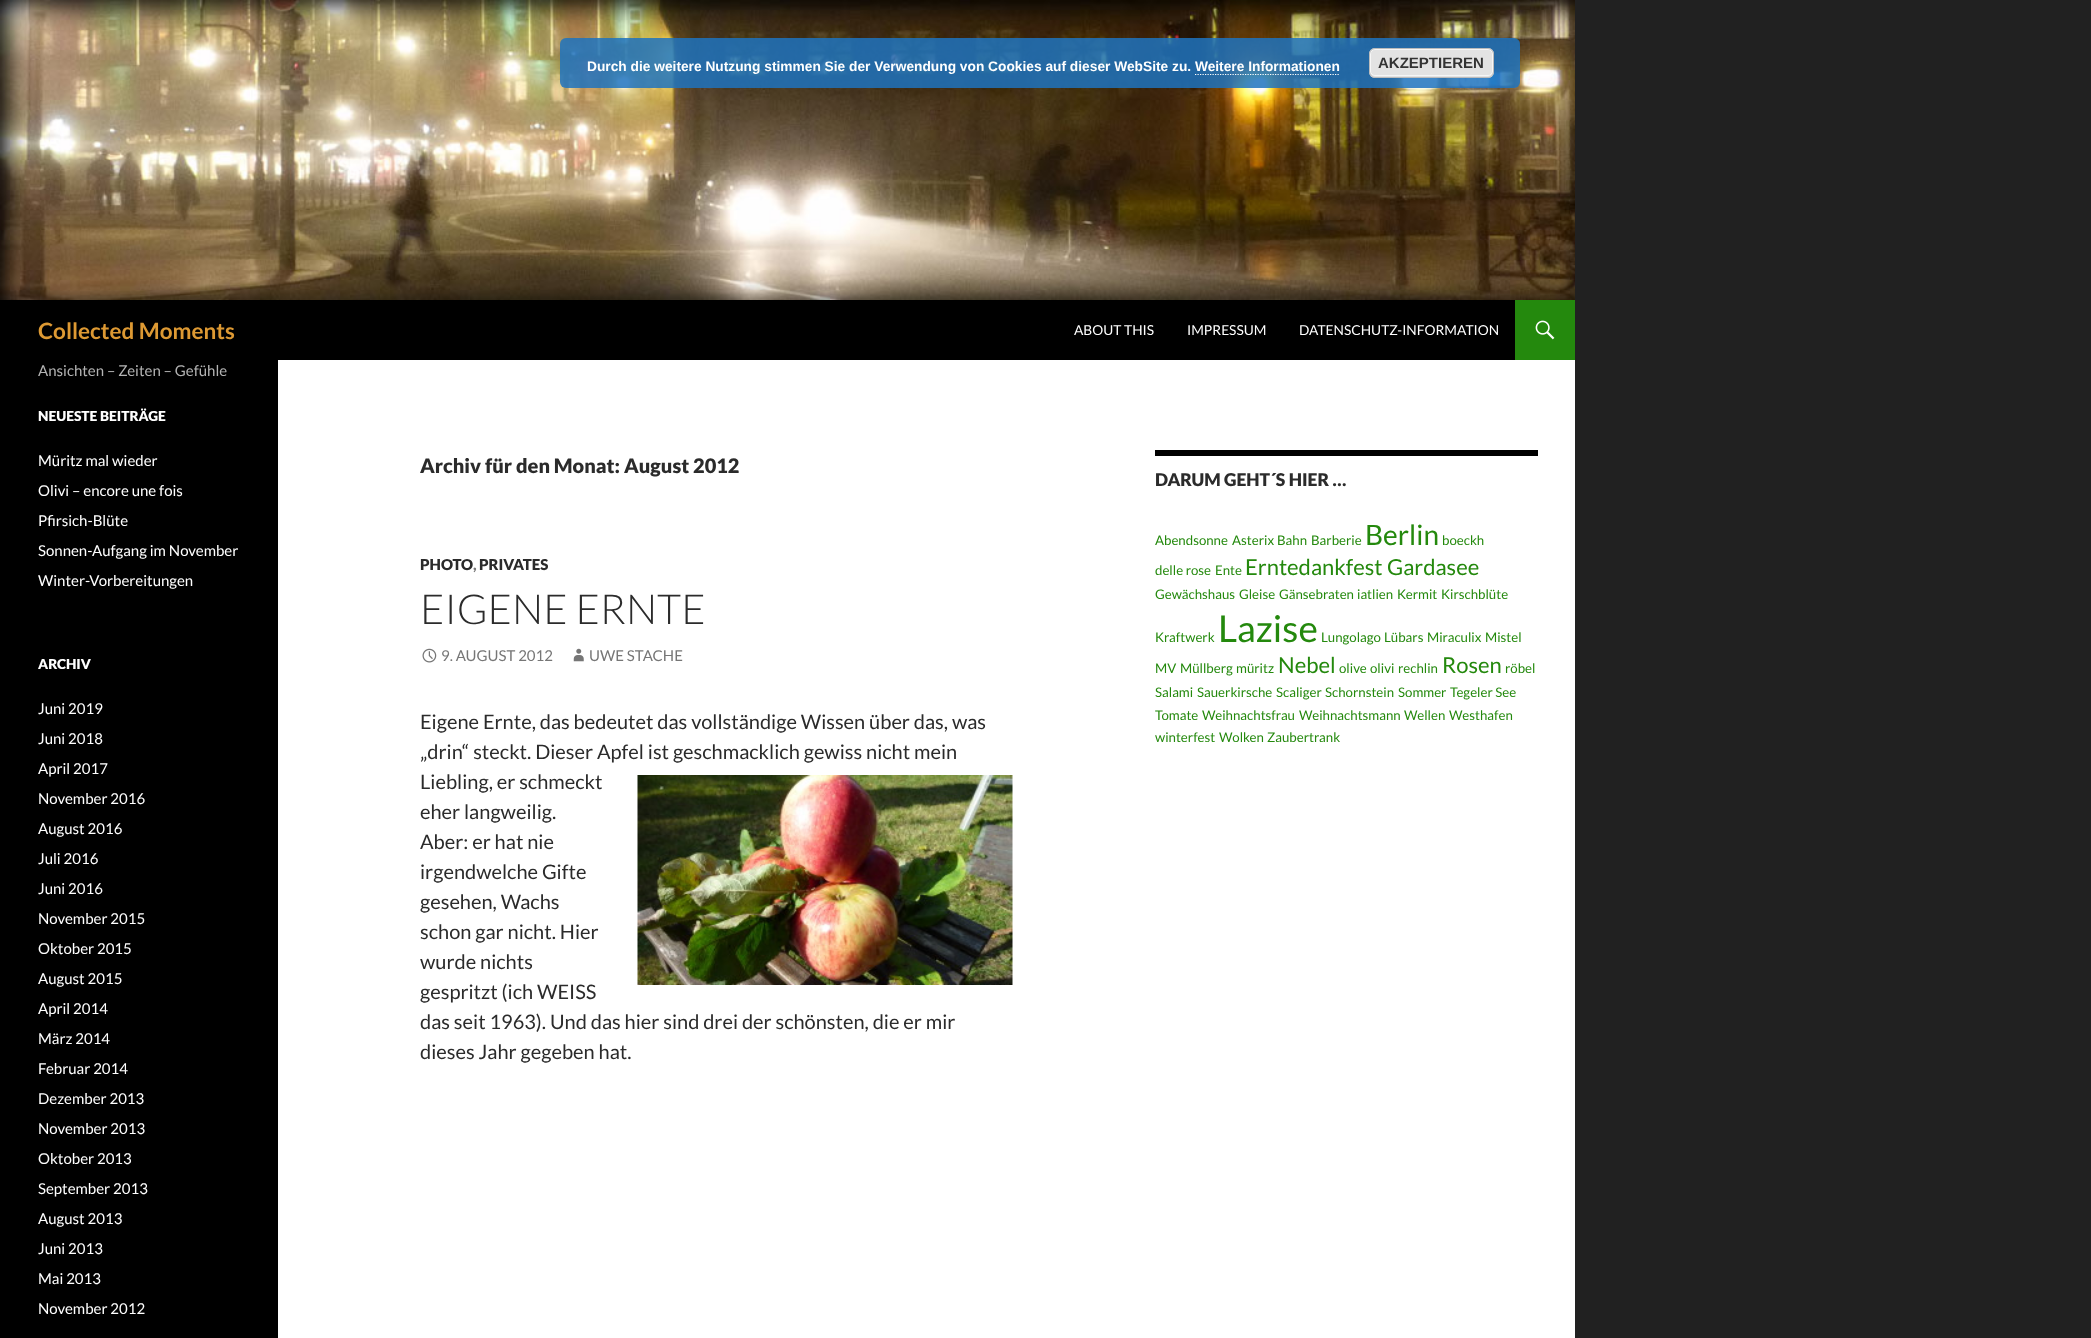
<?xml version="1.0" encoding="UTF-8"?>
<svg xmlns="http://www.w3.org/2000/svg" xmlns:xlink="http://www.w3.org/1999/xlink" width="2091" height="1338">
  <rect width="100%" height="100%" fill="#212121" />
  <image x="0" y="0" width="1575" height="300" xlink:href="image1.png" />
  <rect x="560" y="38" width="960" height="50" rx="6" fill="#1e73be" fill-opacity="0.85" />
  <rect x="1369" y="48" width="125" height="30" rx="6" fill="#e3e3e3" />
  <rect x="1370.5" y="49.5" width="122" height="26" rx="4.5" fill="none" stroke="#f6f6f6" />
  <rect x="1369.5" y="48.5" width="124" height="29" rx="5.5" fill="none" stroke="#bbbbbb" />
  <path d="M 1195 74.5 h 145" fill="none" stroke="#ffffff" stroke-width="1.2" stroke-dasharray="1.25 1.25" />
  <rect x="278" y="360" width="1297" height="978" fill="#ffffff" />
  <rect y="300" width="1515" height="60" fill="#000000" />
  <rect x="1515" y="300" width="60" height="60" fill="#24890d" />
  <image x="1535" y="320" width="20" height="20" xlink:href="image2.png" />
  <rect y="360" width="278" height="978" fill="#000000" />
  <image x="422" y="648" width="15" height="15" xlink:href="image3.png" />
  <image x="573" y="648" width="11" height="14" xlink:href="image4.png" />
  <image x="637" y="775" width="376" height="210" xlink:href="image5.png" />
  <rect x="1155" y="450" width="383" height="6" fill="#000000" />
  <text x="587" y="71" style="font-family: Liberation Sans; font-size: 13.75px; font-weight: bold; fill: #ffffff">Durch die weitere Nutzung stimmen Sie der Verwendung von Cookies auf dieser WebSite zu. Weitere Informationen</text>
  <text x="1378" y="68" style="font-family: Liberation Sans; font-size: 15px; font-weight: bold; fill: #333333">AKZEPTIEREN</text>
  <text x="38" y="339" style="font-family: Lato; font-size: 22.5px; font-weight: bold; fill: #dd9933">Collected Moments</text>
  <text x="1074" y="335" style="font-family: Lato; font-size: 13.75px; fill: #ffffff">ABOUT THIS</text>
  <text x="1187" y="335" style="font-family: Lato; font-size: 13.75px; fill: #ffffff">IMPRESSUM</text>
  <text x="1299" y="335" style="font-family: Lato; font-size: 13.75px; fill: #ffffff">DATENSCHUTZ-INFORMATION</text>
  <text x="38" y="376" style="font-family: Lato; font-size: 15px; fill: #b3b3b3">Ansichten – Zeiten – Gefühle</text>
  <text x="38" y="421" style="font-family: Lato; font-size: 13.75px; font-weight: 900; fill: #ffffff">NEUESTE BEITRÄGE</text>
  <text x="38" y="466" style="font-family: Lato; font-size: 15px; fill: #ffffff">Müritz mal wieder</text>
  <text x="38" y="496" style="font-family: Lato; font-size: 15px; fill: #ffffff">Olivi – encore une fois</text>
  <text x="38" y="526" style="font-family: Lato; font-size: 15px; fill: #ffffff">Pfirsich-Blüte</text>
  <text x="38" y="556" style="font-family: Lato; font-size: 15px; fill: #ffffff">Sonnen-Aufgang im November</text>
  <text x="38" y="586" style="font-family: Lato; font-size: 15px; fill: #ffffff">Winter-Vorbereitungen</text>
  <text x="38" y="669" style="font-family: Lato; font-size: 13.75px; font-weight: 900; fill: #ffffff">ARCHIV</text>
  <text x="38" y="714" style="font-family: Lato; font-size: 15px; fill: #ffffff">Juni 2019</text>
  <text x="38" y="744" style="font-family: Lato; font-size: 15px; fill: #ffffff">Juni 2018</text>
  <text x="38" y="774" style="font-family: Lato; font-size: 15px; fill: #ffffff">April 2017</text>
  <text x="38" y="804" style="font-family: Lato; font-size: 15px; fill: #ffffff">November 2016</text>
  <text x="38" y="834" style="font-family: Lato; font-size: 15px; fill: #ffffff">August 2016</text>
  <text x="38" y="864" style="font-family: Lato; font-size: 15px; fill: #ffffff">Juli 2016</text>
  <text x="38" y="894" style="font-family: Lato; font-size: 15px; fill: #ffffff">Juni 2016</text>
  <text x="38" y="924" style="font-family: Lato; font-size: 15px; fill: #ffffff">November 2015</text>
  <text x="38" y="954" style="font-family: Lato; font-size: 15px; fill: #ffffff">Oktober 2015</text>
  <text x="38" y="984" style="font-family: Lato; font-size: 15px; fill: #ffffff">August 2015</text>
  <text x="38" y="1014" style="font-family: Lato; font-size: 15px; fill: #ffffff">April 2014</text>
  <text x="38" y="1044" style="font-family: Lato; font-size: 15px; fill: #ffffff">März 2014</text>
  <text x="38" y="1074" style="font-family: Lato; font-size: 15px; fill: #ffffff">Februar 2014</text>
  <text x="38" y="1104" style="font-family: Lato; font-size: 15px; fill: #ffffff">Dezember 2013</text>
  <text x="38" y="1134" style="font-family: Lato; font-size: 15px; fill: #ffffff">November 2013</text>
  <text x="38" y="1164" style="font-family: Lato; font-size: 15px; fill: #ffffff">Oktober 2013</text>
  <text x="38" y="1194" style="font-family: Lato; font-size: 15px; fill: #ffffff">September 2013</text>
  <text x="38" y="1224" style="font-family: Lato; font-size: 15px; fill: #ffffff">August 2013</text>
  <text x="38" y="1254" style="font-family: Lato; font-size: 15px; fill: #ffffff">Juni 2013</text>
  <text x="38" y="1284" style="font-family: Lato; font-size: 15px; fill: #ffffff">Mai 2013</text>
  <text x="38" y="1314" style="font-family: Lato; font-size: 15px; fill: #ffffff">November 2012</text>
  <text x="420" y="473" style="font-family: Lato; font-size: 20px; font-weight: 900; fill: #2b2b2b">Archiv für den Monat: August 2012</text>
  <text x="420" y="570" style="font-family: Lato; font-size: 15px; font-weight: 900; fill: #2b2b2b">PHOTO</text>
  <text x="473" y="570" style="font-family: Lato; font-size: 15px; font-weight: 900; fill: #767676">,</text>
  <text x="479" y="570" style="font-family: Lato; font-size: 15px; font-weight: 900; fill: #2b2b2b">PRIVATES</text>
  <text x="420" y="624" style="font-family: Lato; font-size: 41.25px; font-weight: 300; fill: #2b2b2b">EIGENE ERNTE</text>
  <text x="441" y="661" style="font-family: Lato; font-size: 15px; fill: #767676">9. AUGUST 2012</text>
  <text x="589" y="661" style="font-family: Lato; font-size: 15px; fill: #767676">UWE STACHE</text>
  <text x="420" y="729" style="font-family: Lato; font-size: 20px; fill: #2b2b2b">Eigene Ernte, das bedeutet das vollständige Wissen über das, was</text>
  <text x="420" y="759" style="font-family: Lato; font-size: 20px; fill: #2b2b2b">„drin“ steckt. Dieser Apfel ist geschmacklich gewiss nicht mein</text>
  <text x="420" y="789" style="font-family: Lato; font-size: 20px; fill: #2b2b2b">Liebling, er schmeckt</text>
  <text x="420" y="819" style="font-family: Lato; font-size: 20px; fill: #2b2b2b">eher langweilig.</text>
  <text x="420" y="849" style="font-family: Lato; font-size: 20px; fill: #2b2b2b">Aber: er hat nie</text>
  <text x="420" y="879" style="font-family: Lato; font-size: 20px; fill: #2b2b2b">irgendwelche Gifte</text>
  <text x="420" y="909" style="font-family: Lato; font-size: 20px; fill: #2b2b2b">gesehen, Wachs</text>
  <text x="420" y="939" style="font-family: Lato; font-size: 20px; fill: #2b2b2b">schon gar nicht. Hier</text>
  <text x="420" y="969" style="font-family: Lato; font-size: 20px; fill: #2b2b2b">wurde nichts</text>
  <text x="420" y="999" style="font-family: Lato; font-size: 20px; fill: #2b2b2b">gespritzt (ich WEISS</text>
  <text x="420" y="1029" style="font-family: Lato; font-size: 20px; fill: #2b2b2b">das seit 1963). Und das hier sind drei der schönsten, die er mir</text>
  <text x="420" y="1059" style="font-family: Lato; font-size: 20px; fill: #2b2b2b">dieses Jahr gegeben hat.</text>
  <text x="1155" y="486" style="font-family: Lato; font-size: 17.5px; font-weight: 900; fill: #2b2b2b">DARUM GEHT´S HIER …</text>
  <text x="1155" y="545" style="font-family: Lato; font-size: 13.25px; fill: #24890d">Abendsonne</text>
  <text x="1232" y="545" style="font-family: Lato; font-size: 13.25px; fill: #24890d">Asterix</text>
  <text x="1277" y="545" style="font-family: Lato; font-size: 13.25px; fill: #24890d">Bahn</text>
  <text x="1311" y="545" style="font-family: Lato; font-size: 13.25px; fill: #24890d">Barberie</text>
  <text x="1365" y="545" style="font-family: Lato; font-size: 28px; fill: #24890d">Berlin</text>
  <text x="1442" y="545" style="font-family: Lato; font-size: 13.25px; fill: #24890d">boeckh</text>
  <text x="1155" y="575" style="font-family: Lato; font-size: 13.25px; fill: #24890d">delle rose</text>
  <text x="1215" y="575" style="font-family: Lato; font-size: 13.25px; fill: #24890d">Ente</text>
  <text x="1245" y="575" style="font-family: Lato; font-size: 22px; fill: #24890d">Erntedankfest</text>
  <text x="1387" y="575" style="font-family: Lato; font-size: 22px; fill: #24890d">Gardasee</text>
  <text x="1155" y="599" style="font-family: Lato; font-size: 13.25px; fill: #24890d">Gewächshaus</text>
  <text x="1239" y="599" style="font-family: Lato; font-size: 13.25px; fill: #24890d">Gleise</text>
  <text x="1279" y="599" style="font-family: Lato; font-size: 13.25px; fill: #24890d">Gänsebraten</text>
  <text x="1357" y="599" style="font-family: Lato; font-size: 13.25px; fill: #24890d">iatlien</text>
  <text x="1397" y="599" style="font-family: Lato; font-size: 13.25px; fill: #24890d">Kermit</text>
  <text x="1441" y="599" style="font-family: Lato; font-size: 13.25px; fill: #24890d">Kirschblüte</text>
  <text x="1155" y="642" style="font-family: Lato; font-size: 13.25px; fill: #24890d">Kraftwerk</text>
  <text x="1218" y="642" style="font-family: Lato; font-size: 37px; fill: #24890d">Lazise</text>
  <text x="1321" y="642" style="font-family: Lato; font-size: 13.25px; fill: #24890d">Lungolago</text>
  <text x="1384" y="642" style="font-family: Lato; font-size: 13.25px; fill: #24890d">Lübars</text>
  <text x="1427" y="642" style="font-family: Lato; font-size: 13.25px; fill: #24890d">Miraculix</text>
  <text x="1485" y="642" style="font-family: Lato; font-size: 13.25px; fill: #24890d">Mistel</text>
  <text x="1155" y="673" style="font-family: Lato; font-size: 13.25px; fill: #24890d">MV</text>
  <text x="1180" y="673" style="font-family: Lato; font-size: 13.25px; fill: #24890d">Müllberg</text>
  <text x="1236" y="673" style="font-family: Lato; font-size: 13.25px; fill: #24890d">müritz</text>
  <text x="1278" y="673" style="font-family: Lato; font-size: 22px; fill: #24890d">Nebel</text>
  <text x="1339" y="673" style="font-family: Lato; font-size: 13.25px; fill: #24890d">olive</text>
  <text x="1370" y="673" style="font-family: Lato; font-size: 13.25px; fill: #24890d">olivi</text>
  <text x="1398" y="673" style="font-family: Lato; font-size: 13.25px; fill: #24890d">rechlin</text>
  <text x="1442" y="673" style="font-family: Lato; font-size: 22px; fill: #24890d">Rosen</text>
  <text x="1505" y="673" style="font-family: Lato; font-size: 13.25px; fill: #24890d">röbel</text>
  <text x="1155" y="697" style="font-family: Lato; font-size: 13.25px; fill: #24890d">Salami</text>
  <text x="1197" y="697" style="font-family: Lato; font-size: 13.25px; fill: #24890d">Sauerkirsche</text>
  <text x="1276" y="697" style="font-family: Lato; font-size: 13.25px; fill: #24890d">Scaliger</text>
  <text x="1325" y="697" style="font-family: Lato; font-size: 13.25px; fill: #24890d">Schornstein</text>
  <text x="1398" y="697" style="font-family: Lato; font-size: 13.25px; fill: #24890d">Sommer</text>
  <text x="1450" y="697" style="font-family: Lato; font-size: 13.25px; fill: #24890d">Tegeler See</text>
  <text x="1155" y="720" style="font-family: Lato; font-size: 13.25px; fill: #24890d">Tomate</text>
  <text x="1202" y="720" style="font-family: Lato; font-size: 13.25px; fill: #24890d">Weihnachtsfrau</text>
  <text x="1299" y="720" style="font-family: Lato; font-size: 13.25px; fill: #24890d">Weihnachtsmann</text>
  <text x="1404" y="720" style="font-family: Lato; font-size: 13.25px; fill: #24890d">Wellen</text>
  <text x="1449" y="720" style="font-family: Lato; font-size: 13.25px; fill: #24890d">Westhafen</text>
  <text x="1155" y="742" style="font-family: Lato; font-size: 13.25px; fill: #24890d">winterfest</text>
  <text x="1219" y="742" style="font-family: Lato; font-size: 13.25px; fill: #24890d">Wolken</text>
  <text x="1267" y="742" style="font-family: Lato; font-size: 13.25px; fill: #24890d">Zaubertrank</text>
</svg>
